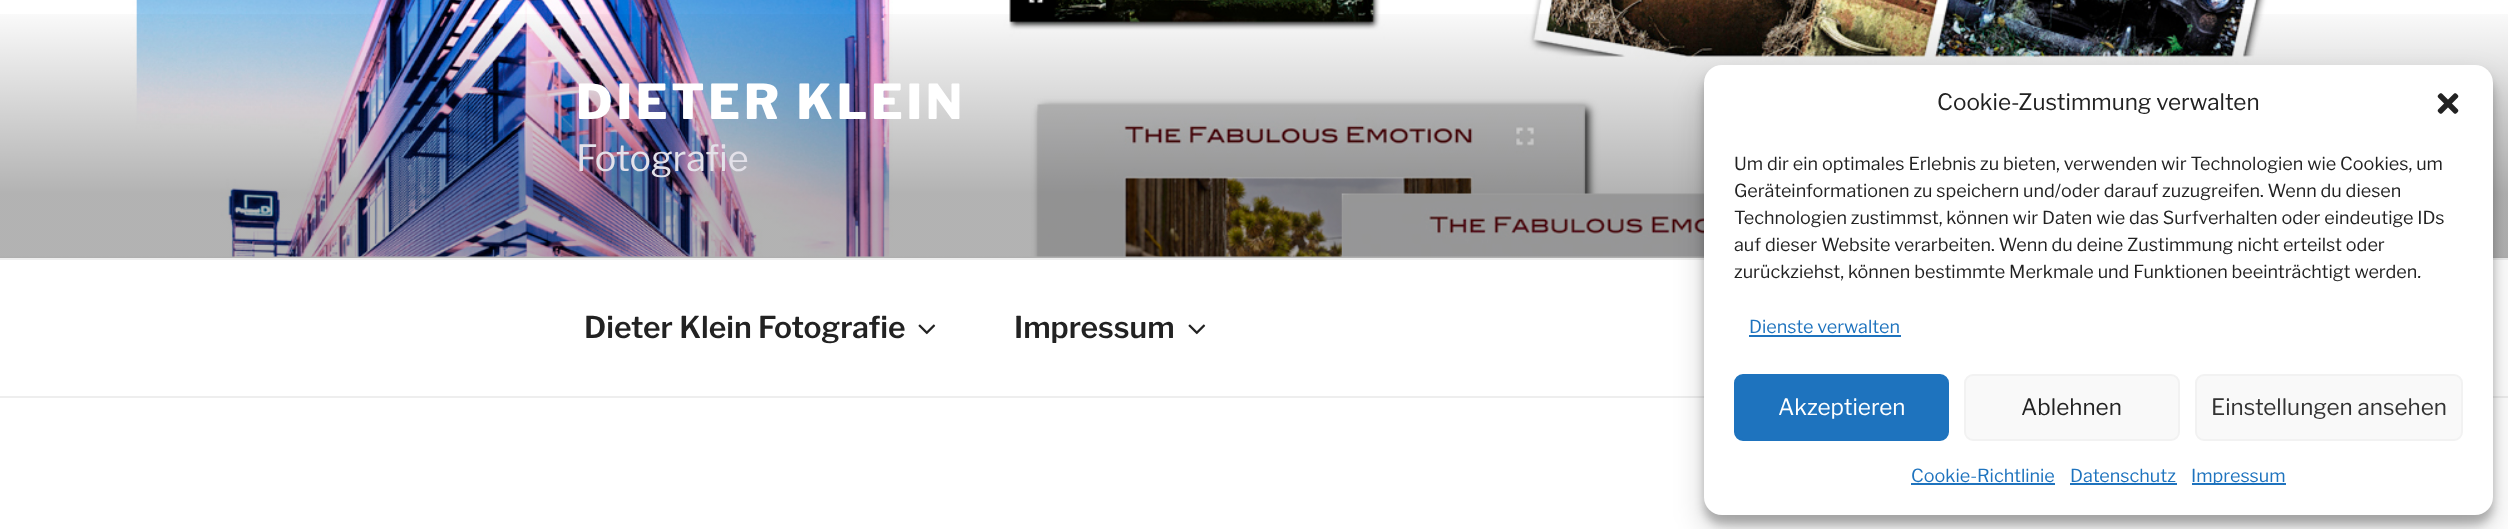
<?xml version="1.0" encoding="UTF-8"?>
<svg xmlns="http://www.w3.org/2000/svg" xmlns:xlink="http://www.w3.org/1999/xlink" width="2508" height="529">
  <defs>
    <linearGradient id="g1" gradientUnits="userSpaceOnUse" x1="1254" y1="0" x2="1254" y2="258"><stop offset="0" stop-color="#000000" stop-opacity="0" /><stop offset="0.75" stop-color="#000000" stop-opacity="0.3" /><stop offset="1" stop-color="#000000" stop-opacity="0.3" /></linearGradient>
  </defs>
  <rect width="100%" height="100%" fill="#ffffff" />
  <rect y="256" width="2508" height="2" fill="#fafafa" />
  <image x="0" y="0" width="2508" height="257" xlink:href="image1.png" />
  <rect y="14" width="2508" height="244" fill="url(#g1)" />
  <rect y="258" width="2508" height="2" fill="#eeeeee" />
  <rect y="396" width="2508" height="2" fill="#eeeeee" />
  <image x="918" y="324" width="18" height="11" xlink:href="image2.png" />
  <image x="1188" y="324" width="18" height="11" xlink:href="image2.png" />
  <rect x="1704" y="74" width="789" height="450" rx="18" fill="#000000" fill-opacity="0.23" filter="blur(4.5px)" />
  <rect x="1704" y="80" width="789" height="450" rx="18" fill="#000000" fill-opacity="0.19" filter="blur(15px)" />
  <rect x="1704" y="65" width="789" height="450" rx="18" fill="#ffffff" />
  <image x="2437" y="93" width="22" height="21" xlink:href="image3.png" />
  <rect x="1749" y="335" width="152" height="2" fill="#1e73be" />
  <rect x="1735" y="375" width="213" height="65" rx="8" fill="#1e73be" stroke="#1e73be" stroke-width="2" />
  <rect x="1965" y="375" width="214" height="65" rx="8" fill="#f9f9f9" stroke="#f2f2f2" stroke-width="2" />
  <rect x="2196" y="375" width="266" height="65" rx="8" fill="#f9f9f9" stroke="#f2f2f2" stroke-width="2" />
  <rect x="1911" y="483" width="144" height="2" fill="#1e73be" />
  <rect x="2070" y="483" width="107" height="2" fill="#1e73be" />
  <rect x="2192" y="483" width="94" height="2" fill="#1e73be" />
  <text x="576" y="119" style="font-family: Libre Franklin; font-size: 48px; font-weight: 100; letter-spacing: 3.8px; fill: #ffffff">DIETER KLEIN</text>
  <text x="576" y="171" style="font-family: 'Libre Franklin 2'; font-size: 36px; font-weight: 100; fill: #e3e1e9">Fotografie</text>
  <text x="584" y="338" style="font-family: 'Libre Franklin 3'; font-size: 30px; font-weight: 100; fill: #222222">Dieter Klein Fotografie</text>
  <text x="1014" y="338" style="font-family: 'Libre Franklin 3'; font-size: 30px; font-weight: 100; fill: #222222">Impressum</text>
  <text x="1937" y="110" style="font-family: 'Libre Franklin 2'; font-size: 22.5px; font-weight: 100; fill: #222222">Cookie-Zustimmung verwalten</text>
  <text x="1734" y="170" style="font-family: 'Libre Franklin 2'; font-size: 18px; font-weight: 100; fill: #222222">Um dir ein optimales Erlebnis zu bieten, verwenden wir Technologien wie Cookies, um</text>
  <text x="1734" y="197" style="font-family: 'Libre Franklin 2'; font-size: 18px; font-weight: 100; fill: #222222">Geräteinformationen zu speichern und/oder darauf zuzugreifen. Wenn du diesen</text>
  <text x="1734" y="224" style="font-family: 'Libre Franklin 2'; font-size: 18px; font-weight: 100; fill: #222222">Technologien zustimmst, können wir Daten wie das Surfverhalten oder eindeutige IDs</text>
  <text x="1734" y="251" style="font-family: 'Libre Franklin 2'; font-size: 18px; font-weight: 100; fill: #222222">auf dieser Website verarbeiten. Wenn du deine Zustimmung nicht erteilst oder</text>
  <text x="1734" y="278" style="font-family: 'Libre Franklin 2'; font-size: 18px; font-weight: 100; fill: #222222">zurückziehst, können bestimmte Merkmale und Funktionen beeinträchtigt werden.</text>
  <text x="1749" y="333" style="font-family: 'Libre Franklin 2'; font-size: 18px; font-weight: 100; fill: #1e73be">Dienste verwalten</text>
  <text x="1778" y="415" style="font-family: 'Libre Franklin 2'; font-size: 22.5px; font-weight: 100; fill: #ffffff">Akzeptieren</text>
  <text x="2021" y="415" style="font-family: 'Libre Franklin 2'; font-size: 22.5px; font-weight: 100; fill: #222222">Ablehnen</text>
  <text x="2211" y="415" style="font-family: 'Libre Franklin 2'; font-size: 22.5px; font-weight: 100; fill: #333333">Einstellungen ansehen</text>
  <text x="1911" y="482" style="font-family: 'Libre Franklin 2'; font-size: 18px; font-weight: 100; fill: #1e73be">Cookie-Richtlinie</text>
  <text x="2070" y="482" style="font-family: 'Libre Franklin 2'; font-size: 18px; font-weight: 100; fill: #1e73be">Datenschutz</text>
  <text x="2191" y="482" style="font-family: 'Libre Franklin 2'; font-size: 18px; font-weight: 100; fill: #1e73be">Impressum</text>
</svg>
